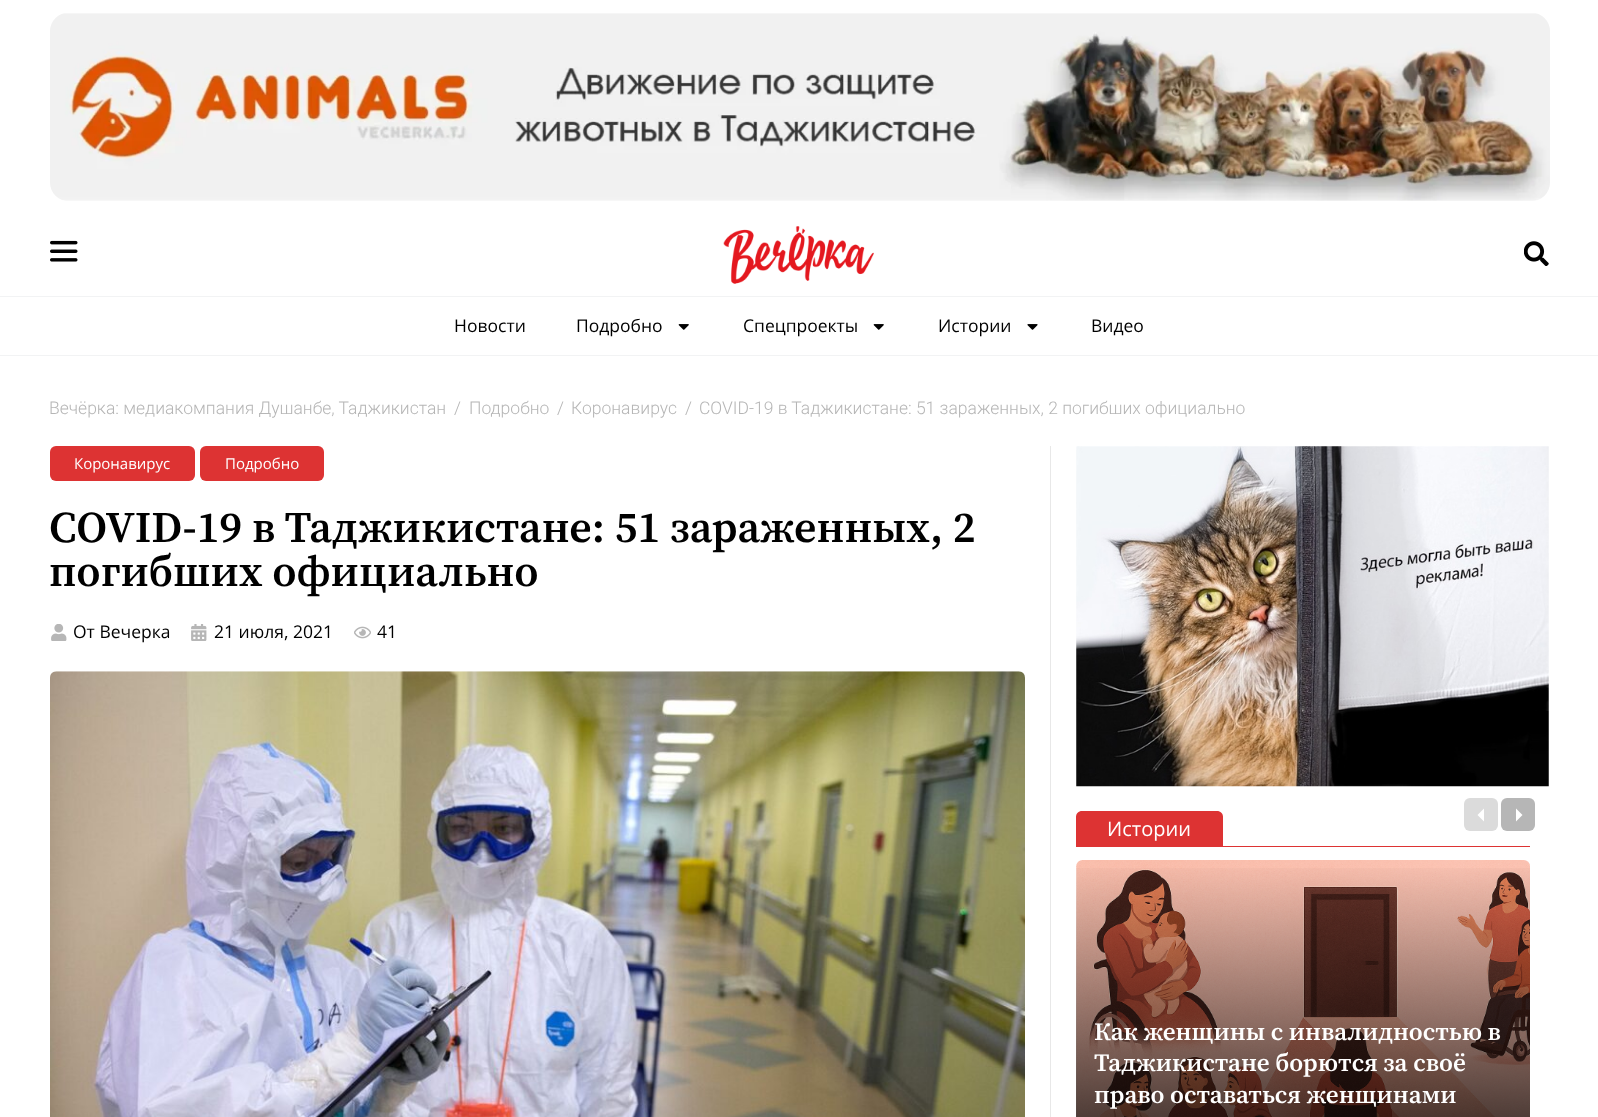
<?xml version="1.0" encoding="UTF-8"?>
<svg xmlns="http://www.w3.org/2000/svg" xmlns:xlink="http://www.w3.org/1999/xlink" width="1598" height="1117">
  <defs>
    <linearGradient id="g1" gradientUnits="userSpaceOnUse" x1="1303" y1="860" x2="1303" y2="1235"><stop offset="0" stop-color="#000000" stop-opacity="0" /><stop offset="1" stop-color="#000000" /></linearGradient>
  </defs>
  <rect width="100%" height="100%" fill="#ffffff" />
  <image x="50" y="13" width="1500" height="188" xlink:href="image1.png" />
  <image x="50" y="240" width="28" height="22" xlink:href="image2.png" />
  <image x="723" y="226" width="151" height="58" xlink:href="image3.png" />
  <image x="1524" y="241" width="25" height="25" xlink:href="image4.png" />
  <rect y="296" width="1598" height="1" fill="#f2f3f4" />
  <rect y="355" width="1598" height="1" fill="#f2f3f4" />
  <image x="678" y="324" width="11" height="6" xlink:href="image5.png" />
  <image x="873" y="324" width="11" height="6" xlink:href="image5.png" />
  <image x="1027" y="324" width="11" height="6" xlink:href="image6.png" />
  <rect x="50" y="446" width="145" height="35" rx="6" fill="#dd3333" />
  <rect x="200" y="446" width="124" height="35" rx="6" fill="#dd3333" />
  <image x="51" y="624" width="16" height="17" xlink:href="image7.png" />
  <image x="191" y="624" width="16" height="17" xlink:href="image8.png" />
  <image x="354" y="626" width="17" height="13" xlink:href="image9.png" />
  <image x="50" y="671" width="975" height="446" xlink:href="image10.png" />
  <rect x="1050" y="446" width="1" height="671" fill="#e8e8e8" />
  <image x="1076" y="446" width="473" height="341" xlink:href="image11.png" />
  <rect x="1076" y="846" width="454" height="1" fill="#dd3333" />
  <path d="M 1082 811 h 135 c 3.5 0 6 2.5 6 6 v 29 h -147 v -29 c 0 -3.5 2.5 -6 6 -6 z" fill="#dd3333" />
  <rect x="1464" y="798" width="34" height="33" rx="6" fill="#dbdbdb" />
  <path d="M 1484 808.5 v 13 l -6.5 -6.5 z" fill="#ffffff" />
  <rect x="1501" y="798" width="34" height="33" rx="6" fill="#b6b6b6" />
  <path d="M 1516 821.5 v -13 l 6.5 6.5 z" fill="#ffffff" />
  <image x="1076" y="860" width="454" height="257" xlink:href="image12.png" />
  <rect x="1076" y="868" width="454" height="249" fill="url(#g1)" />
  <text x="454" y="332" style="font-family: Open Sans; font-size: 17.5px; fill: #000000">Новости</text>
  <text x="576" y="332" style="font-family: Open Sans; font-size: 17.5px; fill: #000000">Подробно</text>
  <text x="743" y="332" style="font-family: Open Sans; font-size: 17.5px; fill: #000000">Спецпроекты</text>
  <text x="938" y="332" style="font-family: Open Sans; font-size: 17.5px; fill: #000000">Истории</text>
  <text x="1091" y="332" style="font-family: Open Sans; font-size: 17.5px; fill: #000000">Видео</text>
  <text x="49" y="414" style="font-family: Roboto; font-size: 17.5px; font-weight: 300; fill: #b6b6b6">Вечёрка: медиакомпания Душанбе, Таджикистан</text>
  <text x="454" y="414" style="font-family: Roboto; font-size: 17.5px; font-weight: 300; fill: #b6b6b6">/</text>
  <text x="469" y="414" style="font-family: Roboto; font-size: 17.5px; font-weight: 300; fill: #b6b6b6">Подробно</text>
  <text x="557" y="414" style="font-family: Roboto; font-size: 17.5px; font-weight: 300; fill: #b6b6b6">/</text>
  <text x="571" y="414" style="font-family: Roboto; font-size: 17.5px; font-weight: 300; fill: #b6b6b6">Коронавирус</text>
  <text x="685" y="414" style="font-family: Roboto; font-size: 17.5px; font-weight: 300; fill: #b6b6b6">/</text>
  <text x="699" y="414" style="font-family: Roboto; font-size: 17.5px; font-weight: 300; fill: #b6b6b6">COVID-19 в Таджикистане: 51 зараженных, 2 погибших официально</text>
  <text x="74" y="469" style="font-family: Open Sans; font-size: 15px; fill: #ffffff">Коронавирус</text>
  <text x="225" y="469" style="font-family: Open Sans; font-size: 15px; fill: #ffffff">Подробно</text>
  <text x="49" y="542" style="font-family: 'Source Serif 4'; font-size: 43.75px; font-weight: 600; fill: #000000">COVID-19 в Таджикистане: 51 зараженных, 2</text>
  <text x="49" y="586" style="font-family: 'Source Serif 4'; font-size: 43.75px; font-weight: 600; fill: #000000">погибших официально</text>
  <text x="73" y="638" style="font-family: Open Sans; font-size: 17.5px; fill: #000000">От Вечерка</text>
  <text x="214" y="638" style="font-family: Open Sans; font-size: 17.5px; fill: #000000">21 июля, 2021</text>
  <text x="377" y="638" style="font-family: Open Sans; font-size: 17.5px; fill: #000000">41</text>
  <text x="1107" y="836" style="font-family: Open Sans; font-size: 20px; fill: #ffffff">Истории</text>
  <text x="1094" y="1040" style="font-family: 'Source Serif 4'; font-size: 25px; font-weight: 600; fill: #ffffff">Как женщины с инвалидностью в</text>
  <text x="1094" y="1071" style="font-family: 'Source Serif 4'; font-size: 25px; font-weight: 600; fill: #ffffff">Таджикистане борются за своё</text>
  <text x="1094" y="1103" style="font-family: 'Source Serif 4'; font-size: 25px; font-weight: 600; fill: #ffffff">право оставаться женщинами</text>
</svg>
